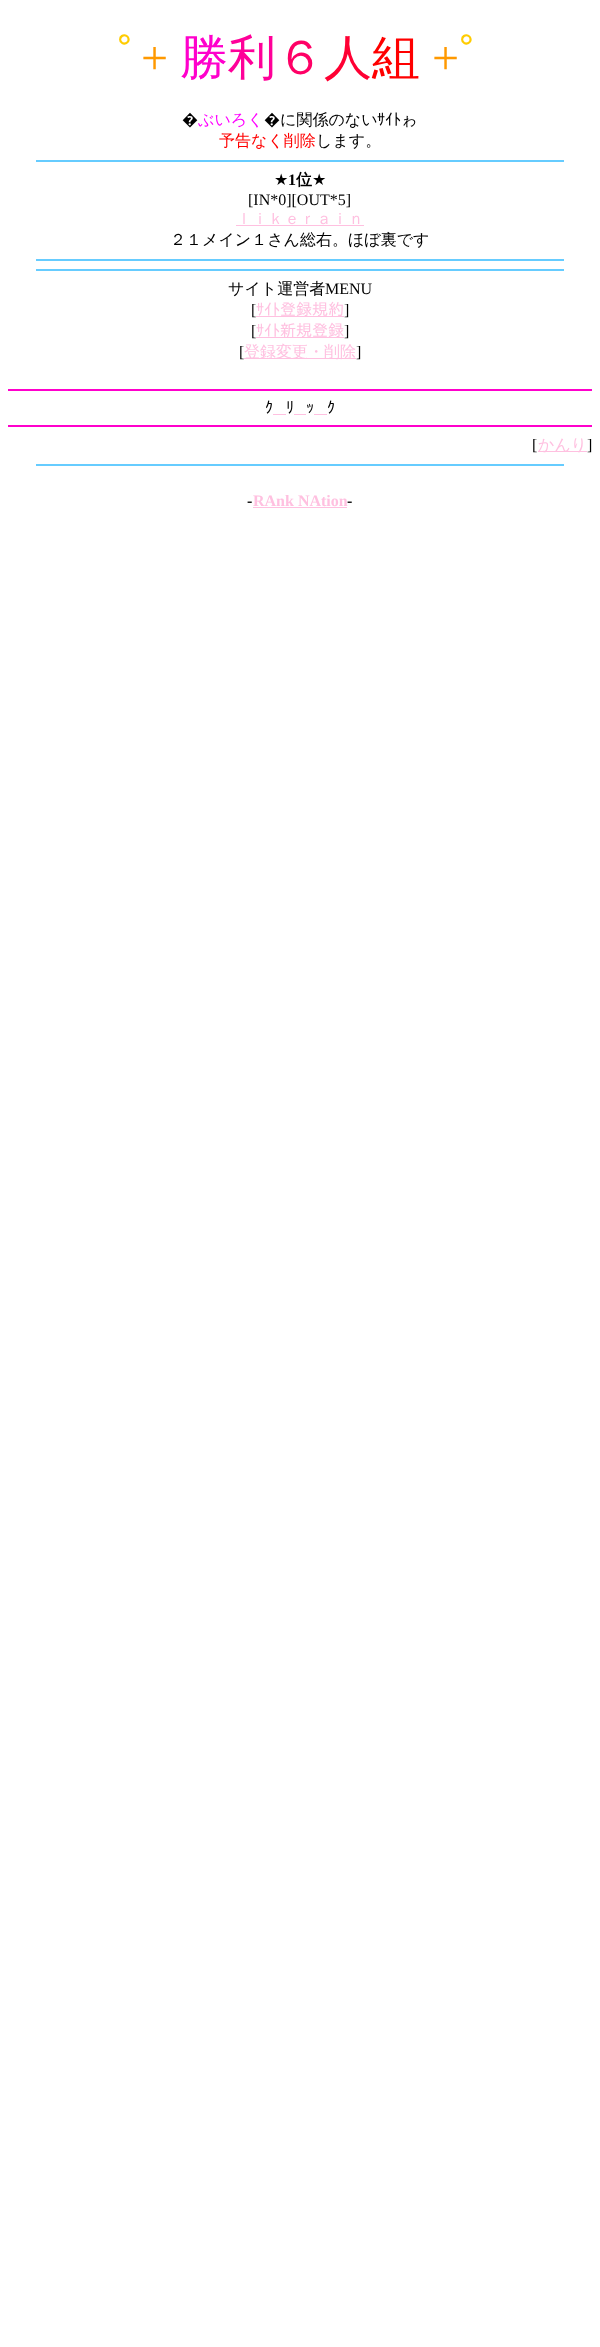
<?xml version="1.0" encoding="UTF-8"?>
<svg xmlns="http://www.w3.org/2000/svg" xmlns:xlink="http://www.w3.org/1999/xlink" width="600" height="2347">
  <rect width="100%" height="100%" fill="#ffffff" />
  <rect x="36" y="160" width="528" height="2" fill="#66ccff" />
  <rect x="236" y="225" width="128" height="1" fill="#ffc0e0" />
  <rect x="36" y="259" width="528" height="2" fill="#66ccff" />
  <rect x="36" y="269" width="528" height="2" fill="#66ccff" />
  <rect x="256" y="316" width="88" height="1" fill="#ffc0e0" />
  <rect x="256" y="337" width="88" height="1" fill="#ffc0e0" />
  <rect x="244" y="358" width="112" height="1" fill="#ffc0e0" />
  <rect x="8" y="389" width="584" height="2" fill="#ff00cc" />
  <rect x="273" y="414" width="13" height="1" fill="#ffc0e0" />
  <rect x="294" y="414" width="12" height="1" fill="#ffc0e0" />
  <rect x="314" y="414" width="13" height="1" fill="#ffc0e0" />
  <rect x="8" y="425" width="584" height="2" fill="#ff00cc" />
  <rect x="538" y="451" width="49" height="1" fill="#ffc0e0" />
  <rect x="36" y="464" width="528" height="2" fill="#66ccff" />
  <rect x="253" y="507" width="94" height="1" fill="#ffc0e0" />
  <text x="117" y="74" style="font-family: IPAGothic; font-size: 48px; fill: #ffcc00">ﾟ</text>
  <text x="141" y="74" style="font-family: Liberation Serif; font-size: 48px; fill: #ff9900">+</text>
  <text x="180" y="74" style="font-family: WenQuanYi Zen Hei; font-size: 48px; font-weight: 500; fill: #ff00cc">勝</text>
  <text x="228" y="74" style="font-family: WenQuanYi Zen Hei; font-size: 48px; font-weight: 500; fill: #ff0099">利</text>
  <text x="276" y="74" style="font-family: WenQuanYi Zen Hei; font-size: 48px; font-weight: 500; fill: #ff0066">６</text>
  <text x="324" y="74" style="font-family: WenQuanYi Zen Hei; font-size: 48px; font-weight: 500; fill: #ff0033">人</text>
  <text x="372" y="74" style="font-family: WenQuanYi Zen Hei; font-size: 48px; font-weight: 500; fill: #ff0000">組</text>
  <text x="432" y="74" style="font-family: Liberation Serif; font-size: 48px; fill: #ff9900">+</text>
  <text x="459" y="74" style="font-family: IPAGothic; font-size: 48px; fill: #ffcc00">ﾟ</text>
  <text x="182" y="125" style="font-family: Noto Sans; font-size: 16px; fill: #000000">�</text>
  <text x="198" y="125" style="font-family: WenQuanYi Zen Hei; font-size: 16px; font-weight: 500; fill: #ff00ff">ぶいろく</text>
  <text x="264" y="125" style="font-family: Noto Sans; font-size: 16px; fill: #000000">�</text>
  <text x="280" y="125" style="font-family: WenQuanYi Zen Hei; font-size: 16px; font-weight: 500; fill: #000000">に関係のない</text>
  <text x="377" y="125" style="font-family: IPAGothic; font-size: 16px; fill: #000000">ｻｲﾄ</text>
  <text x="401" y="125" style="font-family: WenQuanYi Zen Hei; font-size: 16px; font-weight: 500; fill: #000000">ゎ</text>
  <text x="219" y="146" style="font-family: WenQuanYi Zen Hei; font-size: 16px; font-weight: 500; fill: #ff0000">予告なく削除</text>
  <text x="316" y="146" style="font-family: WenQuanYi Zen Hei; font-size: 16px; font-weight: 500; fill: #000000">します。</text>
  <text x="274" y="185" style="font-family: DejaVu Sans; font-size: 16px; fill: #000000">★</text>
  <text x="288" y="185" style="font-family: Liberation Serif; font-size: 16px; font-weight: bold; fill: #000000">1</text>
  <text x="296" y="185" style="font-family: WenQuanYi Zen Hei; font-size: 16px; font-weight: bold; fill: #000000">位</text>
  <text x="312" y="185" style="font-family: DejaVu Sans; font-size: 16px; fill: #000000">★</text>
  <text x="248" y="205" style="font-family: Liberation Serif; font-size: 16px; fill: #000000">[IN*0][OUT*5]</text>
  <text x="236" y="224" style="font-family: WenQuanYi Zen Hei; font-size: 16px; font-weight: 500; fill: #ffc0e0">ｌｉｋｅｒａｉｎ</text>
  <text x="170" y="245" style="font-family: WenQuanYi Zen Hei; font-size: 16px; font-weight: 500; fill: #000000">２１メイン１さん総右。ほぼ裏です</text>
  <text x="228" y="294" style="font-family: WenQuanYi Zen Hei; font-size: 16px; font-weight: 500; fill: #000000">サイト運営者</text>
  <text x="325" y="294" style="font-family: Liberation Serif; font-size: 16px; fill: #000000">MENU</text>
  <text x="251" y="315" style="font-family: Liberation Serif; font-size: 16px; fill: #000000">[</text>
  <text x="256" y="315" style="font-family: IPAGothic; font-size: 16px; fill: #ffc0e0">ｻｲﾄ登録規約</text>
  <text x="344" y="315" style="font-family: Liberation Serif; font-size: 16px; fill: #000000">]</text>
  <text x="251" y="336" style="font-family: Liberation Serif; font-size: 16px; fill: #000000">[</text>
  <text x="256" y="336" style="font-family: IPAGothic; font-size: 16px; fill: #ffc0e0">ｻｲﾄ新規登録</text>
  <text x="344" y="336" style="font-family: Liberation Serif; font-size: 16px; fill: #000000">]</text>
  <text x="239" y="357" style="font-family: Liberation Serif; font-size: 16px; fill: #000000">[</text>
  <text x="244" y="357" style="font-family: WenQuanYi Zen Hei; font-size: 16px; font-weight: 500; fill: #ffc0e0">登録変更・削除</text>
  <text x="356" y="357" style="font-family: Liberation Serif; font-size: 16px; fill: #000000">]</text>
  <text x="265" y="413" style="font-family: IPAGothic; font-size: 16px; fill: #000000">ｸ</text>
  <text x="286" y="413" style="font-family: IPAGothic; font-size: 16px; fill: #000000">ﾘ</text>
  <text x="306" y="413" style="font-family: IPAGothic; font-size: 16px; fill: #000000">ｯ</text>
  <text x="327" y="413" style="font-family: IPAGothic; font-size: 16px; fill: #000000">ｸ</text>
  <text x="532" y="450" style="font-family: Liberation Serif; font-size: 16px; fill: #000000">[</text>
  <text x="538" y="450" style="font-family: WenQuanYi Zen Hei; font-size: 16px; font-weight: 500; fill: #ffc0e0">かんり</text>
  <text x="587" y="450" style="font-family: Liberation Serif; font-size: 16px; fill: #000000">]</text>
  <text x="247" y="506" style="font-family: Liberation Serif; font-size: 16px; font-weight: bold; fill: #000000">-</text>
  <text x="253" y="506" style="font-family: Liberation Serif; font-size: 16px; font-weight: bold; fill: #ffc0e0">RAnk NAtion</text>
  <text x="347" y="506" style="font-family: Liberation Serif; font-size: 16px; font-weight: bold; fill: #000000">-</text>
</svg>
